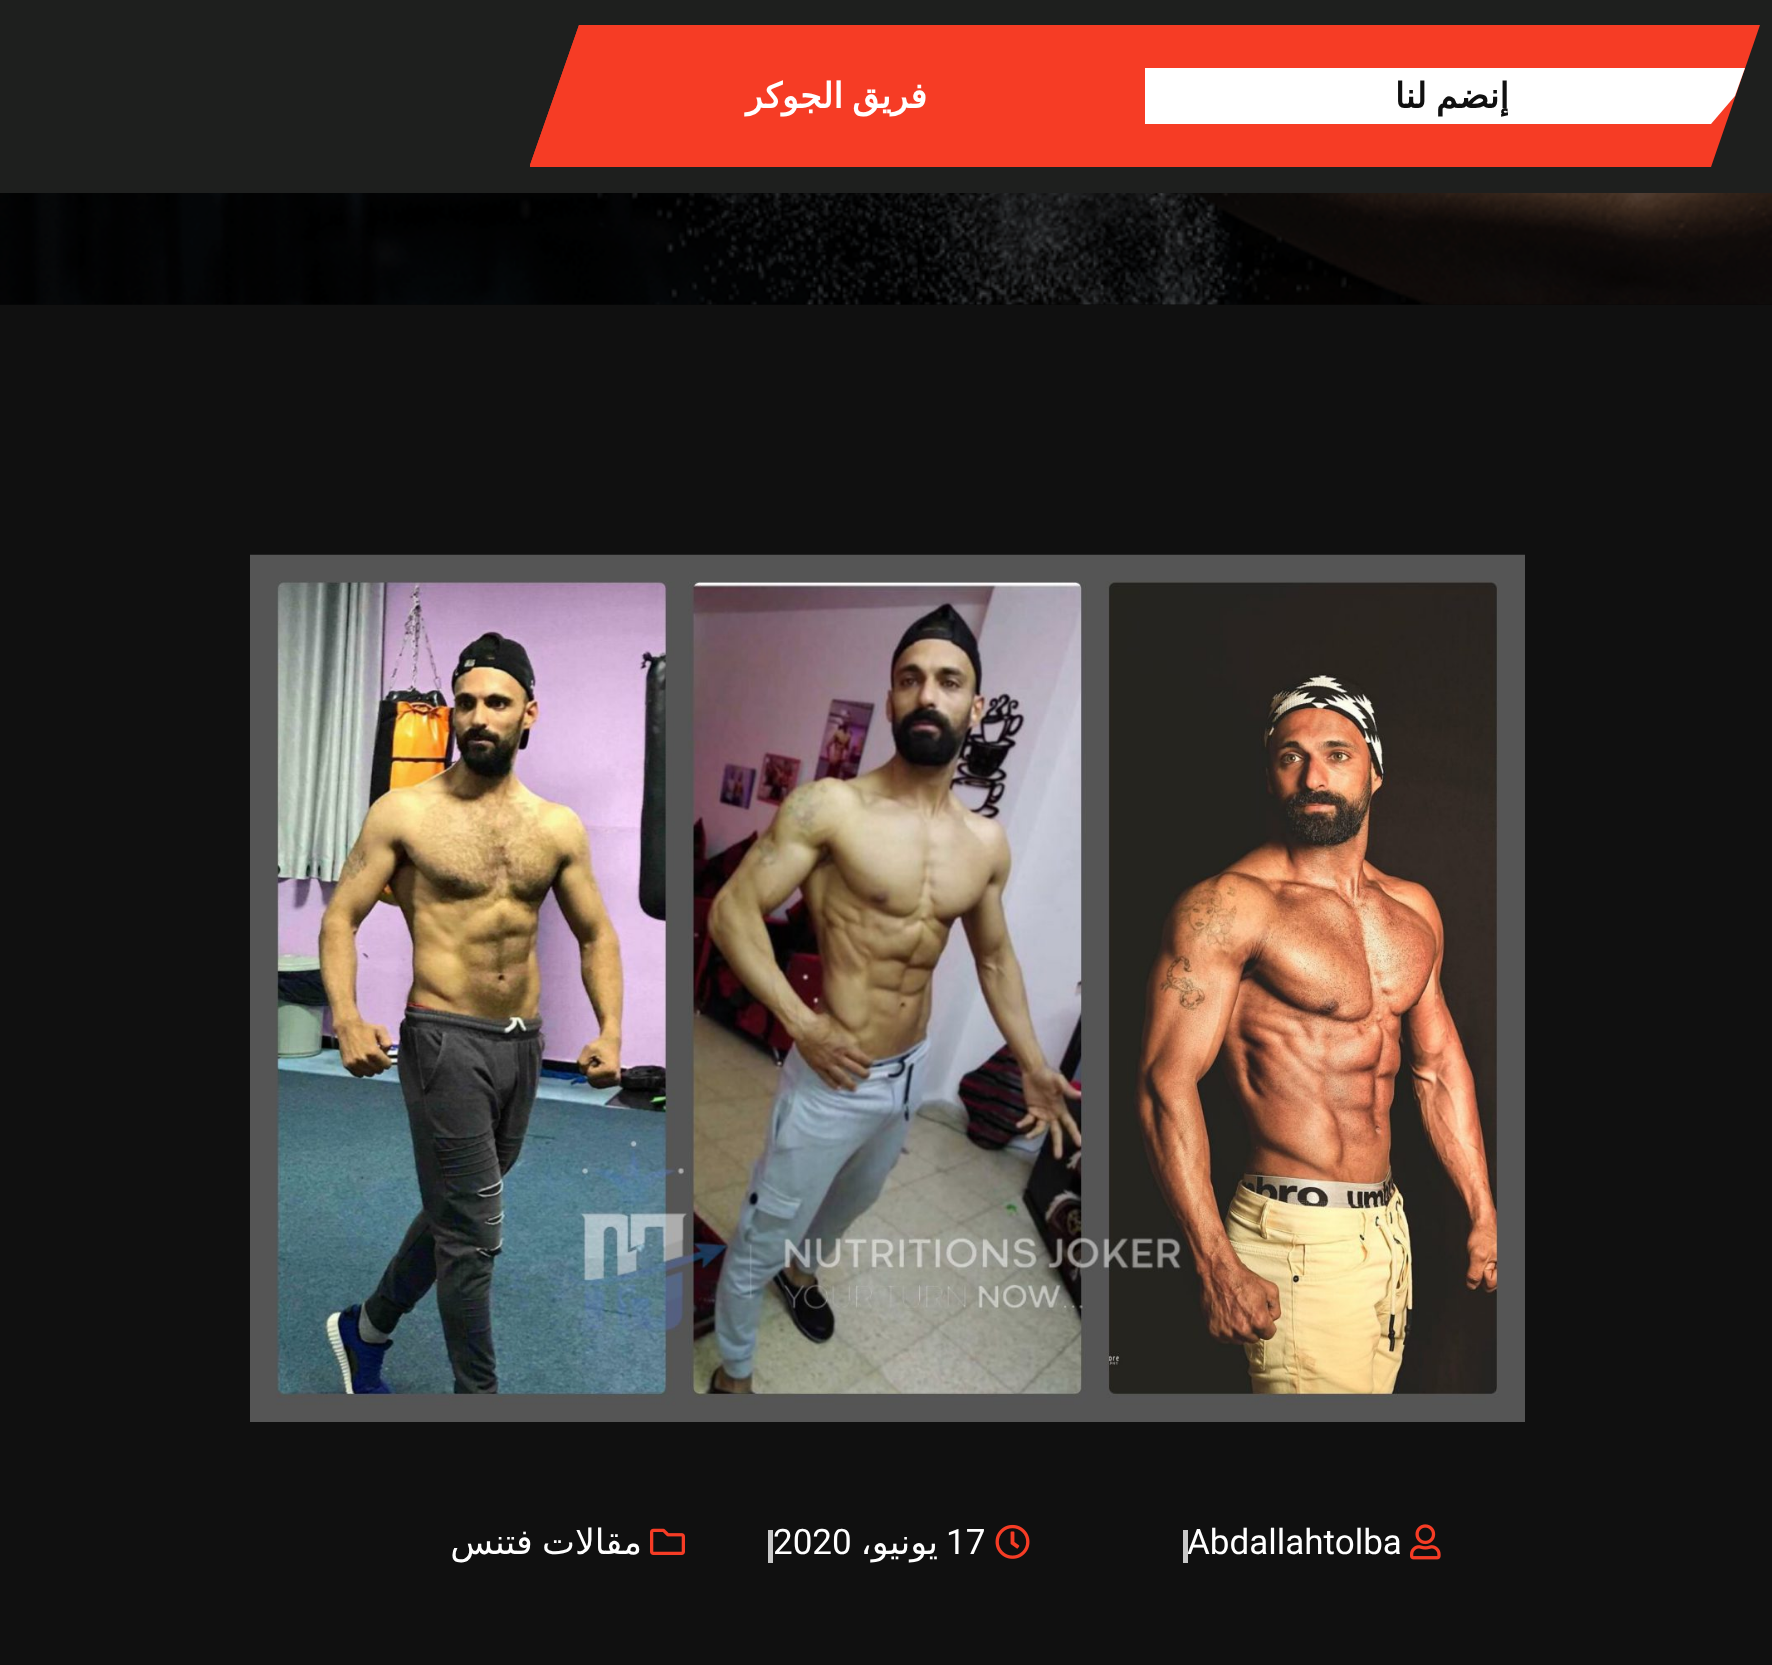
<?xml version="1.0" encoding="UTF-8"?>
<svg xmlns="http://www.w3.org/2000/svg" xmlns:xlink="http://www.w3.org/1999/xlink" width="1772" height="1665">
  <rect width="100%" height="100%" fill="#101010" />
  <rect y="304" width="1772" height="1" fill="#080808" />
  <rect width="1772" height="193" fill="#1e1f1e" />
  <path d="M 579 25 l -49 140 v 2 h 1181 l 49 -142 z" fill="#f63c25" />
  <path d="M 1145 68 h 600 l -10 28 l -24 28 h -566 z" fill="#ffffff" />
  <path d="M 579 25 l -49 140 v 2 h 615 v -142 z" fill="#f63c25" />
  <image x="0" y="193" width="1772" height="112" xlink:href="image1.png" />
  <image x="250" y="554" width="1275" height="868" xlink:href="image2.png" />
  <image x="1410" y="1524" width="31" height="36" xlink:href="image3.png" />
  <image x="995" y="1524" width="35" height="35" xlink:href="image4.png" />
  <rect x="768" y="1530" width="5" height="33" fill="#c8c8c8" />
  <image x="650" y="1528" width="35" height="27" xlink:href="image5.png" />
  <text x="1509" y="108" word-spacing="-2" style="font-family: DejaVu Sans; font-size: 35px; font-weight: bold; direction: rtl; fill: #101010">إنضم لنا</text>
  <text x="927" y="108" word-spacing="-2" style="font-family: DejaVu Sans; font-size: 35px; font-weight: bold; direction: rtl; fill: #ffffff">فريق الجوكر</text>
  <text x="1187" y="1554" style="font-family: Roboto; font-size: 35px; fill: #ffffff">Abdallahtolba</text>
  <rect x="1183" y="1530" width="5" height="33" fill="#c8c8c8" />
  <text x="946" y="1554" style="font-family: Roboto; font-size: 35px; fill: #ffffff">17</text>
  <text x="938" y="1554" style="font-family: DejaVu Sans; font-size: 35px; direction: rtl; fill: #ffffff">يونيو،</text>
  <text x="773" y="1554" style="font-family: Roboto; font-size: 35px; fill: #ffffff">2020</text>
  <text x="642" y="1554" word-spacing="-2" style="font-family: DejaVu Sans; font-size: 35px; direction: rtl; fill: #ffffff">مقالات فتنس</text>
</svg>
